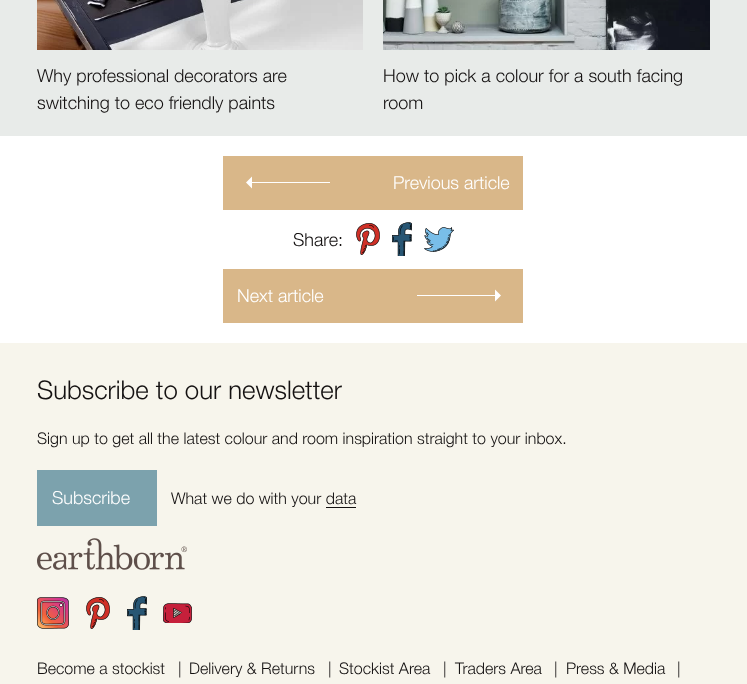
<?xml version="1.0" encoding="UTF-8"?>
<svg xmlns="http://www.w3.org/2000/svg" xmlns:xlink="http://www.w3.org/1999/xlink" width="747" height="684">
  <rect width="100%" height="100%" fill="#ffffff" />
  <rect width="747" height="136" fill="#e8ebe9" />
  <image x="37" y="0" width="326" height="50" xlink:href="image1.png" />
  <image x="383" y="0" width="327" height="50" xlink:href="image2.png" />
  <rect x="223" y="156" width="300" height="54" fill="#d9b789" />
  <rect x="251" y="182" width="79" height="1" fill="#ffffff" />
  <path d="M 246 182.5 l 6 -6 v 12 z" fill="#ffffff" />
  <image x="356" y="223" width="24" height="32" xlink:href="image3.png" />
  <image x="392" y="222" width="20" height="34" xlink:href="image4.png" />
  <image x="424" y="227" width="30" height="25" xlink:href="image5.png" />
  <rect x="223" y="269" width="300" height="54" fill="#d9b789" />
  <rect x="417" y="295" width="79" height="1" fill="#ffffff" />
  <path d="M 501 295.5 l -6 6 v -12 z" fill="#ffffff" />
  <rect y="343" width="747" height="341" fill="#f7f5ec" />
  <rect x="37" y="470" width="120" height="56" fill="#7ca2ad" />
  <rect x="326" y="507" width="30" height="1" fill="#141111" />
  <image x="37" y="538" width="150" height="32" xlink:href="image6.png" />
  <image x="37" y="597" width="32" height="32" xlink:href="image7.png" />
  <image x="86" y="597" width="24" height="32" xlink:href="image8.png" />
  <image x="127" y="596" width="20" height="34" xlink:href="image9.png" />
  <image x="163" y="603" width="29" height="20" xlink:href="image10.png" />
  <text x="37" y="82" style="font-family: 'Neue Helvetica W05'; font-size: 18px; font-weight: 300; fill: #141111">Why professional decorators are</text>
  <text x="37" y="109" style="font-family: 'Neue Helvetica W05'; font-size: 18px; font-weight: 300; fill: #141111">switching to eco friendly paints</text>
  <text x="383" y="82" style="font-family: 'Neue Helvetica W05'; font-size: 18px; font-weight: 300; fill: #141111">How to pick a colour for a south facing</text>
  <text x="383" y="109" style="font-family: 'Neue Helvetica W05'; font-size: 18px; font-weight: 300; fill: #141111">room</text>
  <text x="393" y="189" style="font-family: 'Neue Helvetica W05'; font-size: 18px; font-weight: 300; fill: #ffffff">Previous article</text>
  <text x="293" y="246" style="font-family: 'Neue Helvetica W05'; font-size: 18px; font-weight: 300; fill: #141111">Share:</text>
  <text x="237" y="302" style="font-family: 'Neue Helvetica W05'; font-size: 18px; font-weight: 300; fill: #ffffff">Next article</text>
  <text x="37" y="399" style="font-family: 'Neue Helvetica W05'; font-size: 25.75px; font-weight: 300; fill: #141111">Subscribe to our newsletter</text>
  <text x="37" y="444" style="font-family: 'Neue Helvetica W05'; font-size: 16px; font-weight: 300; fill: #141111">Sign up to get all the latest colour and room inspiration straight to your inbox.</text>
  <text x="52" y="504" style="font-family: 'Neue Helvetica W05'; font-size: 18px; font-weight: 300; fill: #ffffff">Subscribe</text>
  <text x="171" y="504" style="font-family: 'Neue Helvetica W05'; font-size: 16px; font-weight: 300; fill: #141111">What we do with your data</text>
  <text x="37" y="674" style="font-family: 'Neue Helvetica W05'; font-size: 16px; font-weight: 300; fill: #141111">Become a stockist</text>
  <text x="178" y="674" style="font-family: 'Neue Helvetica W05'; font-size: 16px; font-weight: 300; fill: #141111">|</text>
  <text x="189" y="674" style="font-family: 'Neue Helvetica W05'; font-size: 16px; font-weight: 300; fill: #141111">Delivery &amp; Returns</text>
  <text x="328" y="674" style="font-family: 'Neue Helvetica W05'; font-size: 16px; font-weight: 300; fill: #141111">|</text>
  <text x="339" y="674" style="font-family: 'Neue Helvetica W05'; font-size: 16px; font-weight: 300; fill: #141111">Stockist Area</text>
  <text x="443" y="674" style="font-family: 'Neue Helvetica W05'; font-size: 16px; font-weight: 300; fill: #141111">|</text>
  <text x="455" y="674" style="font-family: 'Neue Helvetica W05'; font-size: 16px; font-weight: 300; fill: #141111">Traders Area</text>
  <text x="554" y="674" style="font-family: 'Neue Helvetica W05'; font-size: 16px; font-weight: 300; fill: #141111">|</text>
  <text x="566" y="674" style="font-family: 'Neue Helvetica W05'; font-size: 16px; font-weight: 300; fill: #141111">Press &amp; Media</text>
  <text x="677" y="674" style="font-family: 'Neue Helvetica W05'; font-size: 16px; font-weight: 300; fill: #141111">|</text>
</svg>
